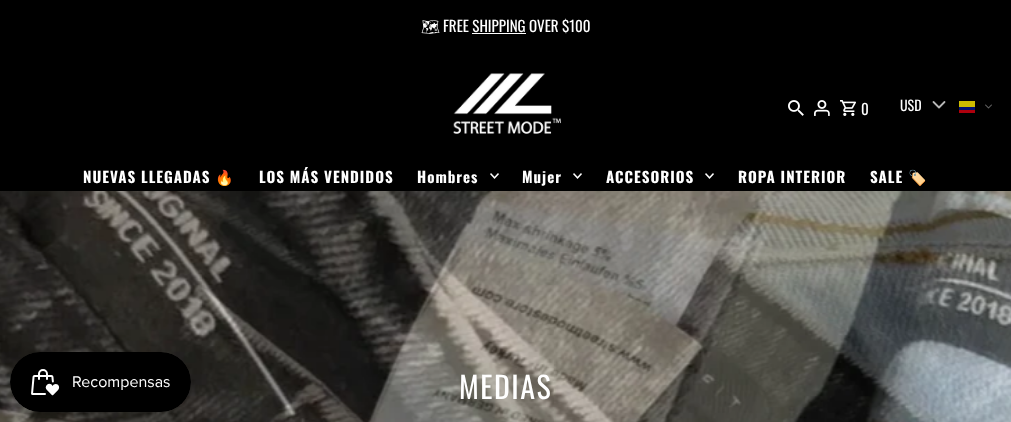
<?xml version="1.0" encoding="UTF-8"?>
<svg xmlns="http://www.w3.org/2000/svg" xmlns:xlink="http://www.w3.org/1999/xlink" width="1011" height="422">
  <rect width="100%" height="100%" fill="#000000" />
  <rect x="472" y="33" width="54" height="1" fill="#ffffff" />
  <image x="453" y="73" width="108" height="61" xlink:href="image1.png" />
  <image x="788" y="100" width="16" height="16" xlink:href="image2.png" />
  <image x="814" y="100" width="16" height="16" xlink:href="image3.png" />
  <image x="840" y="100" width="16" height="16" xlink:href="image4.png" />
  <path d="M 933.5 102 l 5.5 5.5 l 5.5 -5.5" fill="none" stroke="#b7b7b7" stroke-width="1.8" stroke-linecap="round" stroke-linejoin="round" />
  <rect x="959" y="101" width="16" height="6" fill="#ccba00" />
  <image x="985" y="104" width="7" height="5" xlink:href="image5.png" />
  <rect x="959" y="107" width="16" height="3" fill="#001072" />
  <rect x="959" y="110" width="16" height="3" fill="#ae000d" />
  <image x="490" y="173" width="9" height="6" xlink:href="image6.png" />
  <image x="573" y="173" width="9" height="6" xlink:href="image6.png" />
  <image x="705" y="173" width="9" height="6" xlink:href="image6.png" />
  <image x="0" y="191" width="1011" height="231" xlink:href="image7.png" />
  <image x="10" y="352" width="181" height="60" xlink:href="image8.png" />
  <text x="421" y="32" style="font-family: Noto Emoji; font-size: 15px; fill: #ffffff">🗺</text>
  <text x="443" y="32" style="font-family: Oswald; font-size: 15px; fill: #ffffff">FREE SHIPPING OVER $100</text>
  <text x="861" y="115" style="font-family: Oswald; font-size: 15px; letter-spacing: 1px; fill: #ffffff">0</text>
  <text x="900" y="111" style="font-family: Oswald; font-size: 14px; fill: #ffffff">USD</text>
  <text x="83" y="183" style="font-family: Oswald; font-size: 15px; font-weight: bold; letter-spacing: 1px; fill: #ffffff">NUEVAS LLEGADAS</text>
  <text x="215" y="183" style="font-family: Noto Color Emoji; font-size: 15px; font-weight: bold; letter-spacing: 1px; fill: #ffffff">🔥</text>
  <text x="259" y="183" style="font-family: Oswald; font-size: 15px; font-weight: bold; letter-spacing: 1px; fill: #ffffff">LOS MÁS VENDIDOS</text>
  <text x="417" y="183" style="font-family: Oswald; font-size: 15px; font-weight: bold; letter-spacing: 1px; fill: #ffffff">Hombres</text>
  <text x="522" y="183" style="font-family: Oswald; font-size: 15px; font-weight: bold; letter-spacing: 1px; fill: #ffffff">Mujer</text>
  <text x="606" y="183" style="font-family: Oswald; font-size: 15px; font-weight: bold; letter-spacing: 1px; fill: #ffffff">ACCESORIOS</text>
  <text x="738" y="183" style="font-family: Oswald; font-size: 15px; font-weight: bold; letter-spacing: 1px; fill: #ffffff">ROPA INTERIOR</text>
  <text x="870" y="183" style="font-family: Oswald; font-size: 15px; font-weight: bold; letter-spacing: 1px; fill: #ffffff">SALE</text>
  <text x="908" y="183" style="font-family: Noto Color Emoji; font-size: 15px; font-weight: bold; letter-spacing: 1px; fill: #ffffff">🏷️</text>
  <text x="459" y="399" style="font-family: Oswald; font-size: 30px; letter-spacing: 1.5px; fill: #ffffff">MEDIAS</text>
</svg>
